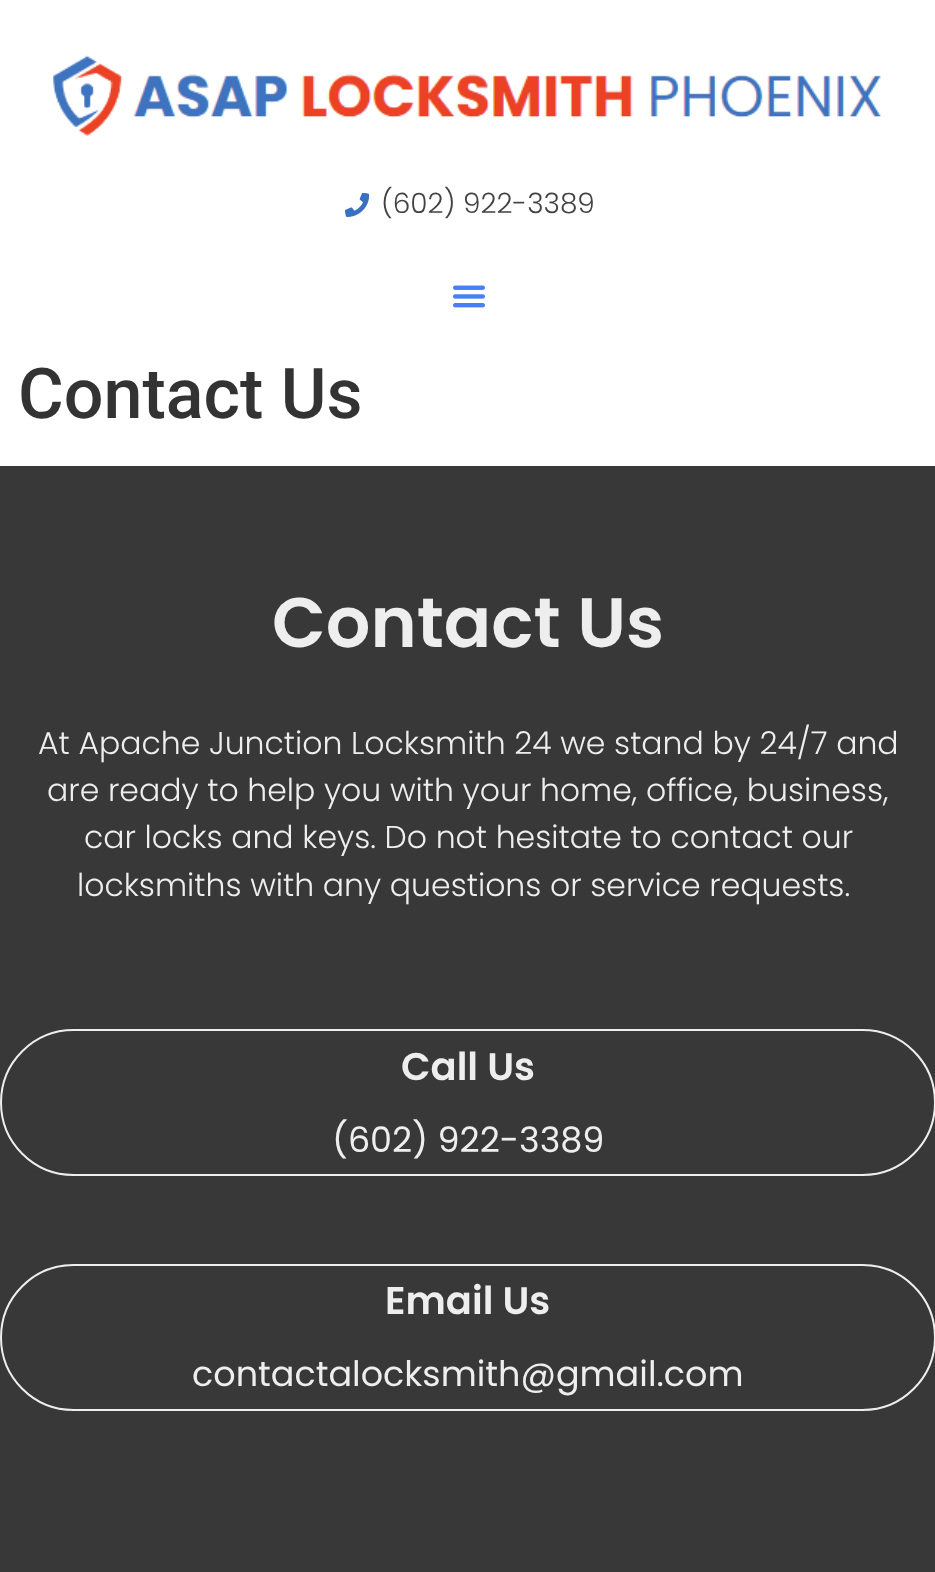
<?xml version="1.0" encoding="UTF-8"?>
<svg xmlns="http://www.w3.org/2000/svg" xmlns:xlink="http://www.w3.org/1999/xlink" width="935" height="1572">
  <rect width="100%" height="100%" fill="#ffffff" />
  <image x="53" y="55" width="829" height="81" xlink:href="image1.png" />
  <image x="345" y="193" width="24" height="24" xlink:href="image2.png" />
  <image x="453" y="285" width="32" height="23" xlink:href="image3.png" />
  <rect y="466" width="935" height="1106" fill="#383838" />
  <rect x="1" y="1030" width="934" height="145" rx="72.5" fill="none" stroke="#eeeeee" stroke-width="2" />
  <rect x="1" y="1265" width="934" height="145" rx="72.5" fill="none" stroke="#eeeeee" stroke-width="2" />
  <text x="381" y="213" style="font-family: Poppins; font-size: 28px; font-weight: 300; fill: #424242">(602) 922-3389</text>
  <text x="18" y="418" style="font-family: Roboto; font-size: 70px; font-weight: 500; fill: #333333">Contact Us</text>
  <text x="272" y="647" style="font-family: Poppins; font-size: 70px; font-weight: 600; fill: #eeeeee">Contact Us</text>
  <text x="38" y="754" style="font-family: Poppins; font-size: 31.5px; font-weight: 300; fill: #eeeeee">At Apache Junction Locksmith 24 we stand by 24/7 and</text>
  <text x="47" y="801" style="font-family: Poppins; font-size: 31.5px; font-weight: 300; fill: #eeeeee">are ready to help you with your home, office, business,</text>
  <text x="84" y="848" style="font-family: Poppins; font-size: 31.5px; font-weight: 300; fill: #eeeeee">car locks and keys. Do not hesitate to contact our</text>
  <text x="77" y="896" style="font-family: Poppins; font-size: 31.5px; font-weight: 300; fill: #eeeeee">locksmiths with any questions or service requests.</text>
  <text x="401" y="1080" style="font-family: Poppins; font-size: 38.5px; font-weight: 600; fill: #eeeeee">Call Us</text>
  <text x="332" y="1152" style="font-family: Poppins; font-size: 35px; fill: #eeeeee">(602) 922-3389</text>
  <text x="385" y="1314" style="font-family: Poppins; font-size: 38.5px; font-weight: 600; fill: #eeeeee">Email Us</text>
  <text x="192" y="1386" style="font-family: Poppins; font-size: 35px; fill: #eeeeee">contactalocksmith@gmail.com</text>
</svg>
